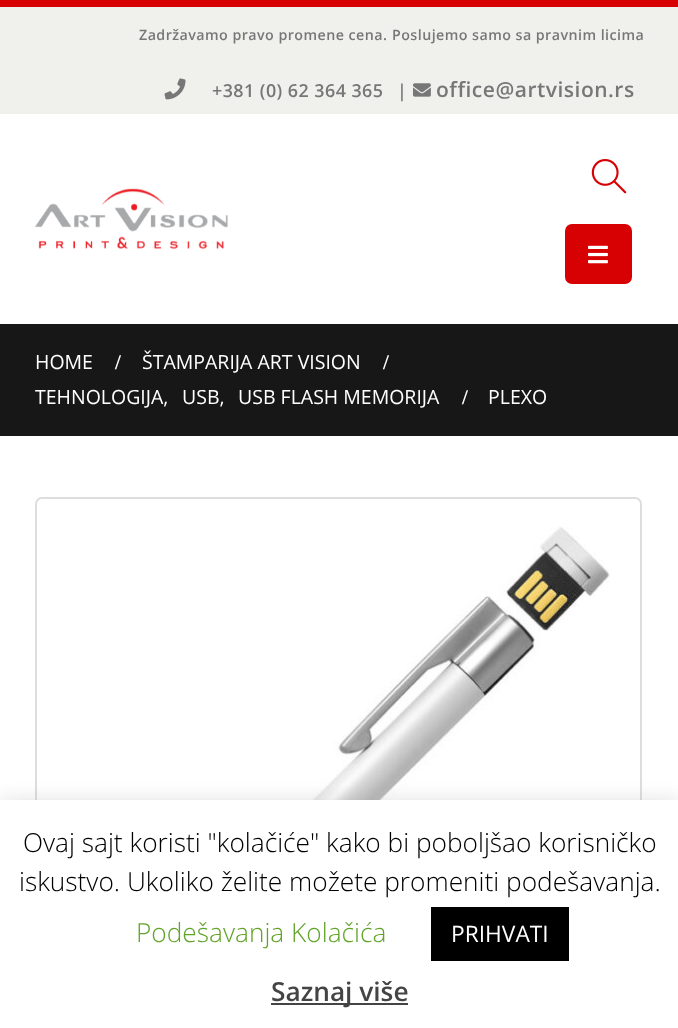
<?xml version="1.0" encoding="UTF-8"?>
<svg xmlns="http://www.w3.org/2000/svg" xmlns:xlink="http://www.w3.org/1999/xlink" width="678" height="1028">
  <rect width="100%" height="100%" fill="#ffffff" />
  <rect width="678" height="7" fill="#d70003" />
  <rect y="7" width="678" height="107" fill="#f0f0ed" />
  <image x="164" y="78" width="22" height="22" xlink:href="image1.png" />
  <image x="413" y="83" width="18" height="14" xlink:href="image2.png" />
  <image x="35" y="188" width="193" height="61" xlink:href="image3.png" />
  <image x="591" y="159" width="36" height="35" xlink:href="image4.png" />
  <rect x="565" y="224" width="67" height="60" rx="7" fill="#d70003" />
  <image x="588" y="245" width="20" height="19" xlink:href="image5.png" />
  <rect y="324" width="678" height="112" fill="#171717" />
  <rect x="36" y="498" width="605" height="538" rx="6" fill="none" stroke="#dddddd" stroke-width="2" />
  <image x="91" y="526" width="519" height="274" xlink:href="image6.png" />
  <rect y="798" width="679" height="229" fill="#acabab" fill-opacity="0.3" filter="blur(9px)" />
  <rect y="800" width="678" height="228" fill="#ffffff" />
  <rect x="431" y="907" width="138" height="54" fill="#000000" />
  <rect x="271" y="1003" width="137" height="2" fill="#444444" />
  <text x="139" y="40" style="font-family: Open Sans; font-size: 14.25px; font-weight: 600; letter-spacing: 0.45px; fill: #777777">Zadržavamo pravo promene cena.</text>
  <text x="392" y="40" style="font-family: Open Sans; font-size: 14.25px; font-weight: 600; letter-spacing: 0.45px; fill: #777777">Poslujemo samo sa pravnim licima</text>
  <text x="212" y="97" style="font-family: Open Sans; font-size: 17.9px; font-weight: 600; letter-spacing: 0.45px; fill: #777777">+381 (0) 62 364 365</text>
  <text x="397" y="97" style="font-family: Open Sans; font-size: 17.9px; font-weight: 600; letter-spacing: 0.45px; fill: #777777">|</text>
  <text x="436" y="97" style="font-family: Open Sans; font-size: 21px; font-weight: 600; letter-spacing: 0.5px; fill: #777777">office@artvision.rs</text>
  <text x="35" y="369" style="font-family: Open Sans; font-size: 19.5px; fill: #ffffff">HOME</text>
  <text x="115" y="369" style="font-family: Liberation Serif; font-size: 21px; font-weight: bold; fill: #ffffff">/</text>
  <text x="142" y="369" style="font-family: Open Sans; font-size: 19.5px; fill: #ffffff">ŠTAMPARIJA ART VISION</text>
  <text x="383" y="369" style="font-family: Liberation Serif; font-size: 21px; font-weight: bold; fill: #ffffff">/</text>
  <text x="35" y="404" style="font-family: Open Sans; font-size: 19.5px; fill: #ffffff">TEHNOLOGIJA,</text>
  <text x="182" y="404" style="font-family: Open Sans; font-size: 19.5px; fill: #ffffff">USB,</text>
  <text x="238" y="404" style="font-family: Open Sans; font-size: 19.5px; fill: #ffffff">USB FLASH MEMORIJA</text>
  <text x="462" y="404" style="font-family: Liberation Serif; font-size: 21px; font-weight: bold; fill: #ffffff">/</text>
  <text x="488" y="404" style="font-family: Open Sans; font-size: 19.5px; fill: #ffffff">PLEXO</text>
  <text x="23" y="852" style="font-family: Open Sans; font-size: 26.25px; font-weight: 300; fill: #000000">Ovaj sajt koristi "kolačiće" kako bi poboljšao korisničko</text>
  <text x="19" y="891" style="font-family: Open Sans; font-size: 26.25px; font-weight: 300; fill: #000000">iskustvo. Ukoliko želite možete promeniti podešavanja.</text>
  <text x="136" y="942" style="font-family: Open Sans; font-size: 26.25px; font-weight: 300; fill: #62a329">Podešavanja Kolačića</text>
  <text x="451" y="942" style="font-family: Open Sans; font-size: 22.75px; fill: #ffffff">PRIHVATI</text>
  <text x="271" y="1001" style="font-family: Open Sans; font-size: 26.25px; font-weight: 600; fill: #444444">Saznaj više</text>
</svg>
